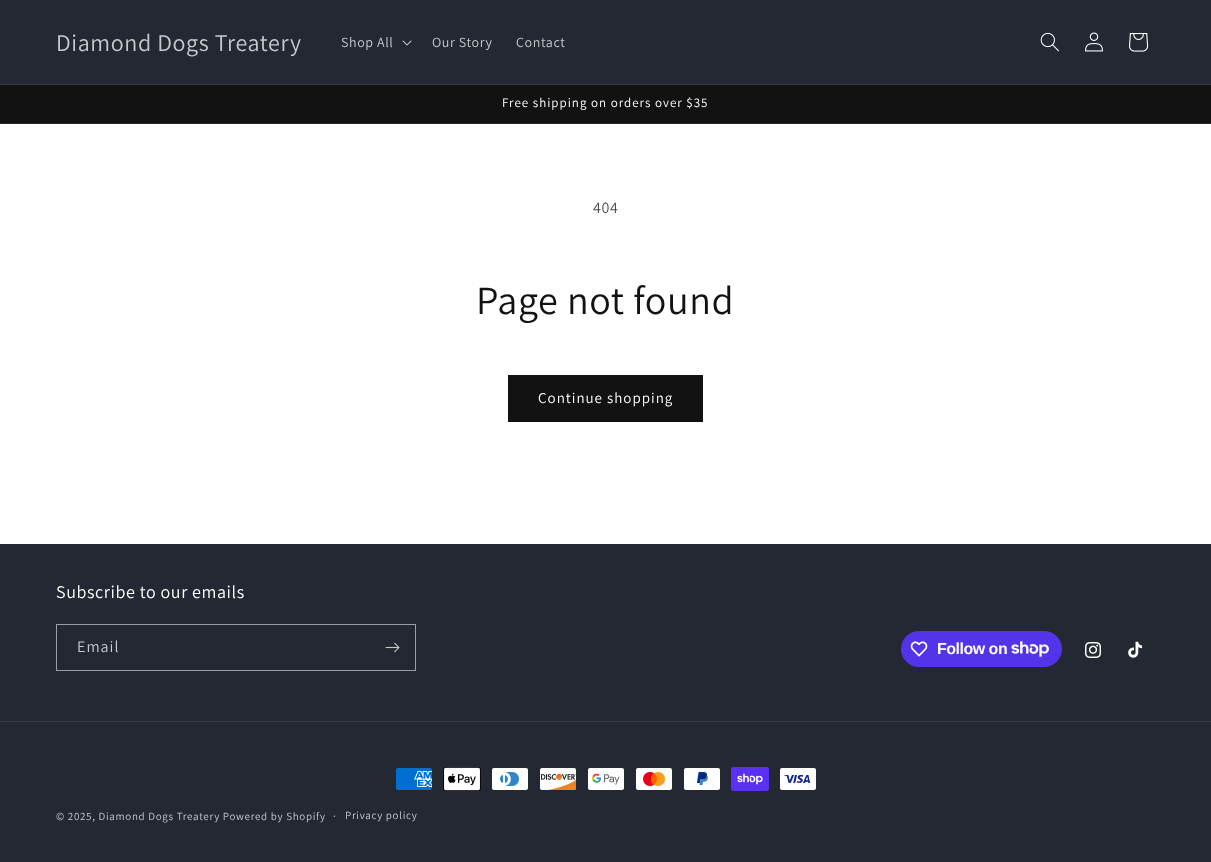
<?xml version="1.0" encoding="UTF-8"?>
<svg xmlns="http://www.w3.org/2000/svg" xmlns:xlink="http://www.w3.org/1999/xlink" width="1211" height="862">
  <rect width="100%" height="100%" fill="#ffffff" />
  <rect width="1211" height="84" fill="#242833" />
  <rect y="84" width="1211" height="1" fill="#363943" />
  <image x="402" y="40" width="10" height="6" xlink:href="image1.png" />
  <image x="1040" y="32" width="19" height="20" xlink:href="image2.png" />
  <image x="1085" y="32" width="18" height="20" xlink:href="image3.png" />
  <image x="1129" y="33" width="20" height="19" xlink:href="image4.png" />
  <rect y="85" width="1211" height="38" fill="#121212" />
  <rect y="123" width="1211" height="1" fill="#252525" />
  <rect x="508" y="375" width="195" height="47" fill="#121212" />
  <rect y="544" width="1211" height="318" fill="#242833" />
  <rect x="56.5" y="624.5" width="359" height="46" fill="none" stroke="#9c9ea3" />
  <image x="385" y="642" width="15" height="11" xlink:href="image5.png" />
  <rect x="901" y="631" width="161" height="36" rx="18" fill="#5433eb" />
  <image x="910" y="641" width="18" height="16" xlink:href="image6.png" />
  <image x="1011" y="641" width="38" height="16" xlink:href="image7.png" />
  <image x="1085" y="642" width="16" height="16" xlink:href="image8.png" />
  <image x="1128" y="641" width="15" height="17" xlink:href="image9.png" />
  <rect y="721" width="1211" height="1" fill="#363943" />
  <image x="396" y="768" width="36" height="22" xlink:href="image10.png" />
  <image x="443" y="767" width="38" height="24" xlink:href="image11.png" />
  <image x="492" y="768" width="36" height="22" xlink:href="image12.png" />
  <image x="540" y="768" width="36" height="22" xlink:href="image13.png" />
  <image x="588" y="768" width="36" height="22" xlink:href="image14.png" />
  <image x="636" y="768" width="36" height="22" xlink:href="image15.png" />
  <image x="684" y="768" width="36" height="22" xlink:href="image16.png" />
  <image x="731" y="767" width="38" height="24" xlink:href="image17.png" />
  <image x="780" y="768" width="36" height="22" xlink:href="image18.png" />
  <text x="56" y="51" style="font-family: Assistant; font-size: 24px; letter-spacing: 0.6px; fill: #c8c9cc">Diamond Dogs Treatery</text>
  <text x="341" y="47" style="font-family: Assistant; font-size: 14px; letter-spacing: 0.6px; fill: #c8c9cc">Shop All</text>
  <text x="432" y="47" style="font-family: Assistant; font-size: 14px; letter-spacing: 0.6px; fill: #c8c9cc">Our Story</text>
  <text x="516" y="47" style="font-family: Assistant; font-size: 14px; letter-spacing: 0.6px; fill: #c8c9cc">Contact</text>
  <text x="502" y="107" style="font-family: Assistant; font-size: 13px; letter-spacing: 1px; fill: #ffffff">Free shipping on orders over $35</text>
  <text x="593" y="213" style="font-family: Assistant; font-size: 16px; letter-spacing: 0.6px; fill: #4d4d4d">404</text>
  <text x="476" y="314" style="font-family: Assistant; font-size: 40px; letter-spacing: 0.6px; fill: #121212">Page not found</text>
  <text x="538" y="403" style="font-family: Assistant; font-size: 15px; letter-spacing: 1px; fill: #ffffff">Continue shopping</text>
  <text x="56" y="598" style="font-family: Assistant; font-size: 18px; letter-spacing: 0.6px; fill: #ffffff">Subscribe to our emails</text>
  <text x="77" y="652" style="font-family: Assistant; font-size: 16px; letter-spacing: 1px; fill: #c8c9cc">Email</text>
  <text x="937" y="654" style="font-family: Liberation Sans; font-size: 16px; font-weight: bold; letter-spacing: -0.5px; fill: #ffffff">Follow on</text>
  <text x="56" y="820" style="font-family: Assistant; font-size: 11px; letter-spacing: 0.7px; fill: #c8c9cc">© 2025, Diamond Dogs Treatery Powered by Shopify</text>
  <text x="333" y="820" style="font-family: Assistant; font-size: 12px; letter-spacing: 0.7px; fill: #c8c9cc">·</text>
  <text x="345" y="819" style="font-family: Assistant; font-size: 11px; letter-spacing: 0.7px; fill: #c8c9cc">Privacy policy</text>
</svg>
